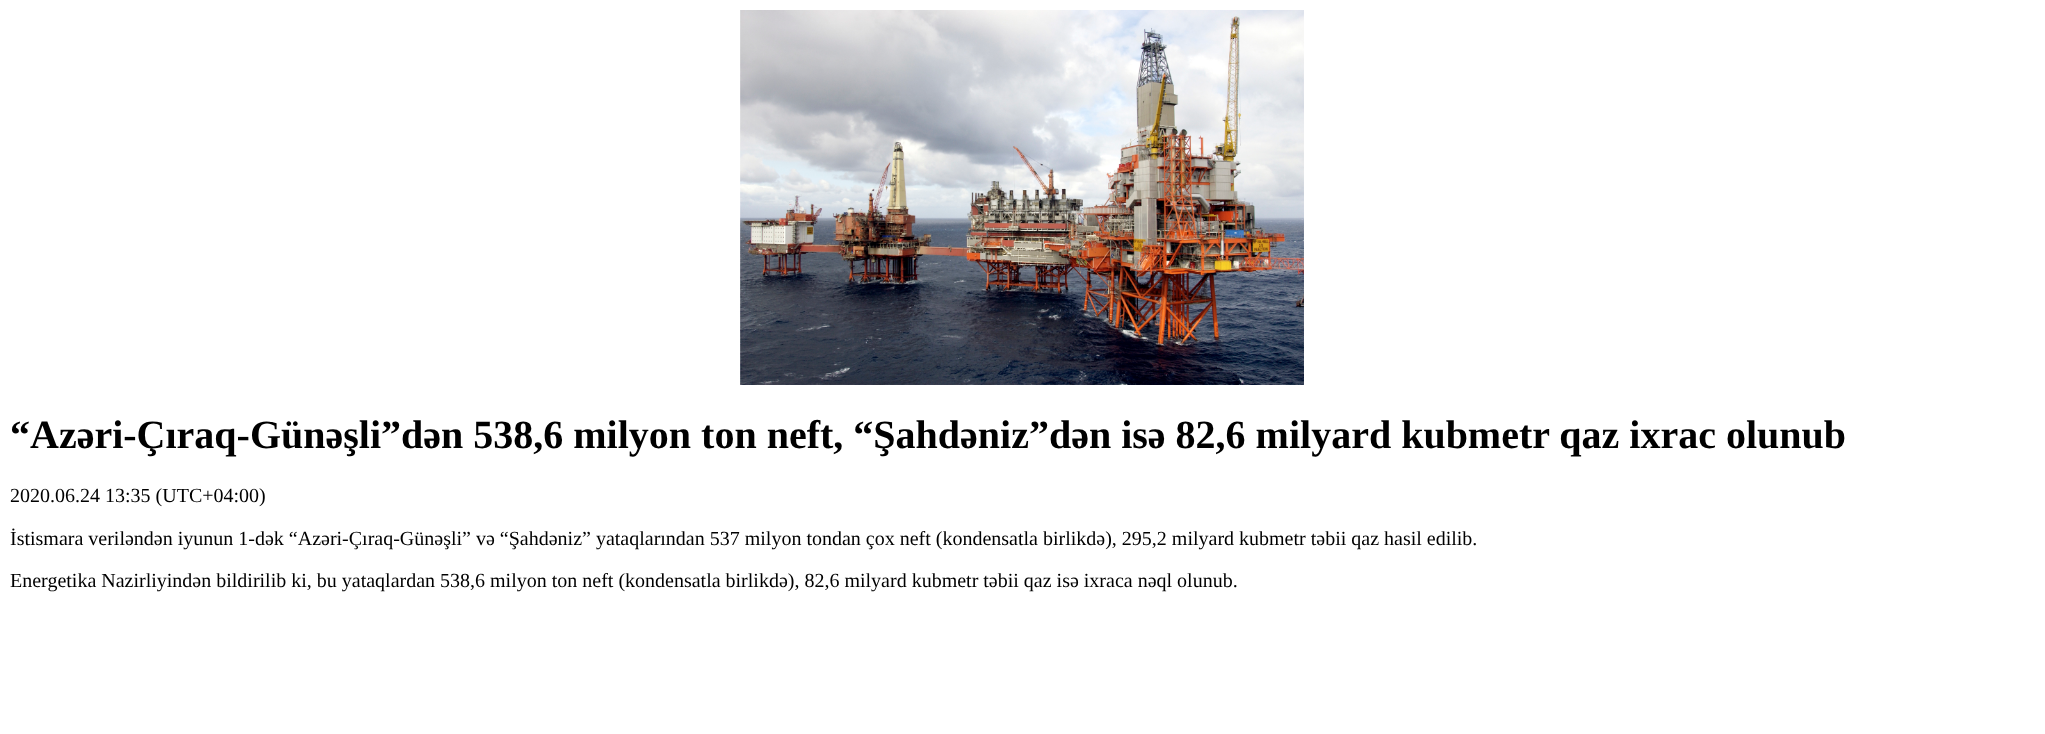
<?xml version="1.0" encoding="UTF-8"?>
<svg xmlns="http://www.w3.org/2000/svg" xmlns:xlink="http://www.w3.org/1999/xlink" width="2045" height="734">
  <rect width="100%" height="100%" fill="#ffffff" />
  <image x="740" y="10" width="564" height="375" xlink:href="image1.png" />
  <text x="10" y="448" style="font-family: Liberation Serif; font-size: 40px; font-weight: bold; fill: #000000">“Azəri-Çıraq-Günəşli”dən 538,6 milyon ton neft, “Şahdəniz”dən isə 82,6 milyard kubmetr qaz ixrac olunub</text>
  <text x="10" y="502" style="font-family: Liberation Serif; font-size: 20px; fill: #000000">2020.06.24 13:35 (UTC+04:00)</text>
  <text x="10" y="545" style="font-family: Liberation Serif; font-size: 20px; fill: #000000">İstismara veriləndən iyunun 1-dək “Azəri-Çıraq-Günəşli” və “Şahdəniz” yataqlarından 537 milyon tondan çox neft (kondensatla birlikdə), 295,2 milyard kubmetr təbii qaz hasil edilib.</text>
  <text x="10" y="587" style="font-family: Liberation Serif; font-size: 20px; fill: #000000">Energetika Nazirliyindən bildirilib ki, bu yataqlardan 538,6 milyon ton neft (kondensatla birlikdə), 82,6 milyard kubmetr təbii qaz isə ixraca nəql olunub.</text>
</svg>
